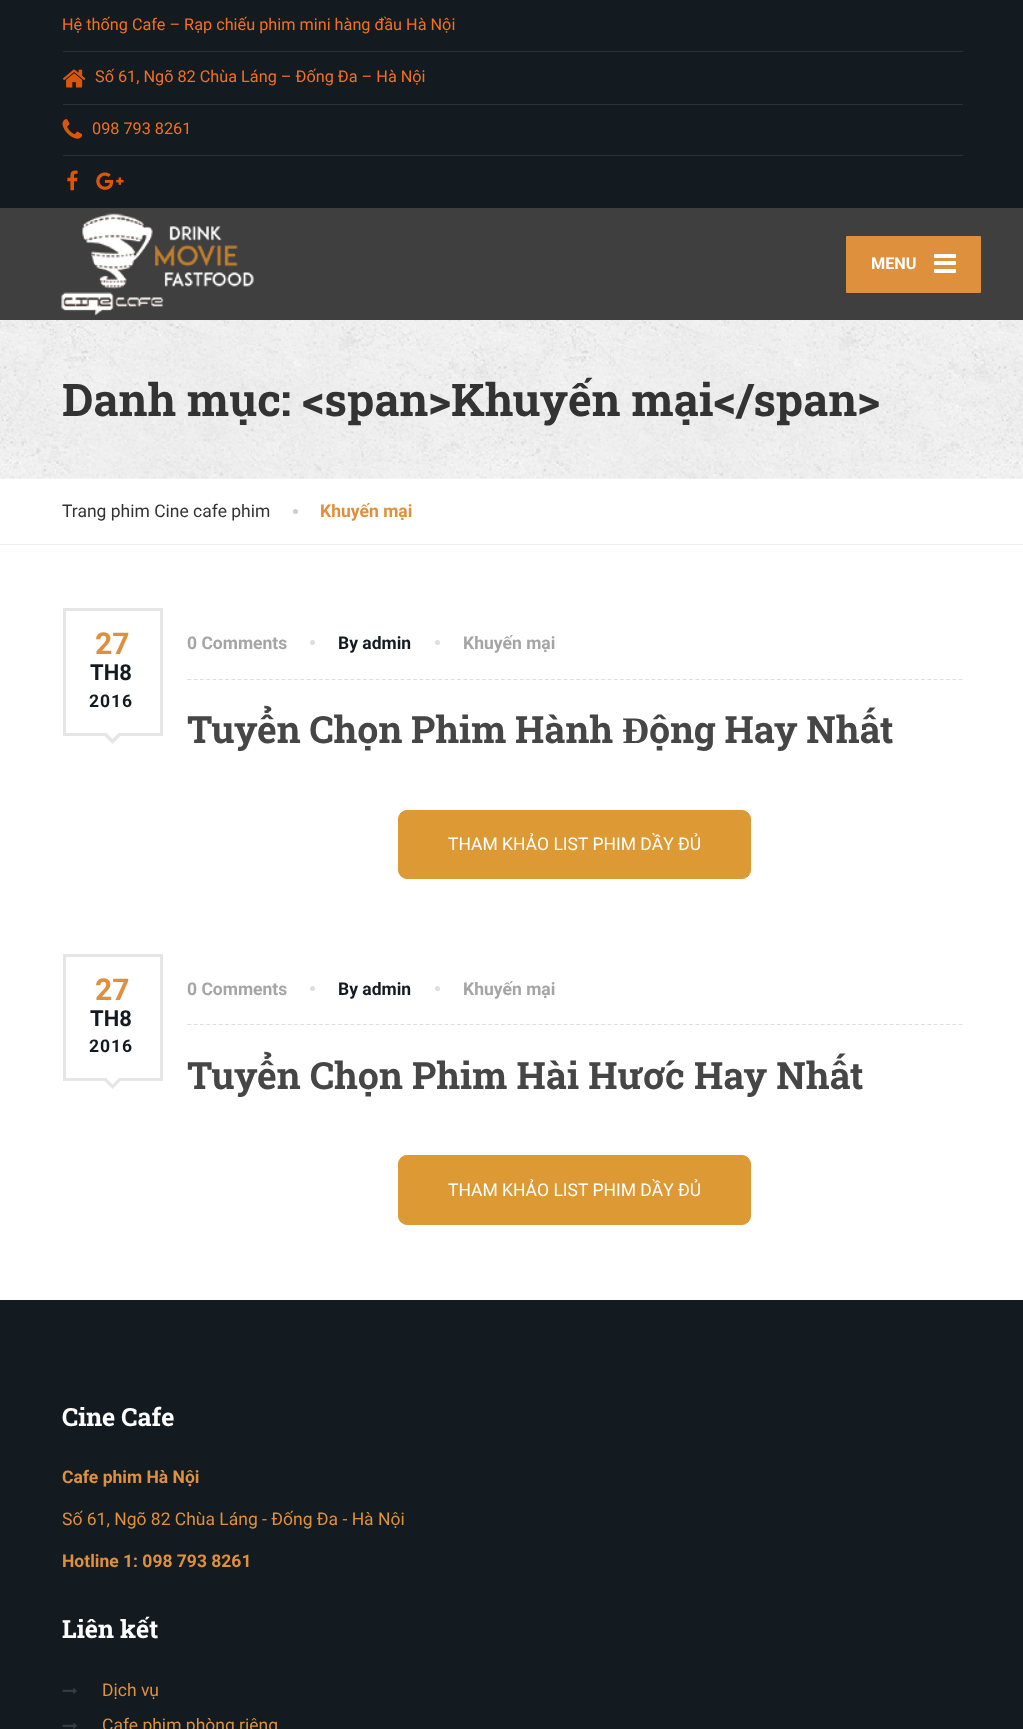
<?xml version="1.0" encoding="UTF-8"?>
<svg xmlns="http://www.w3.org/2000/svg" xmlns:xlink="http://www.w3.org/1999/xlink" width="1023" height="1729">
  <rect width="100%" height="100%" fill="#ffffff" />
  <rect width="1023" height="208" fill="#131a20" />
  <rect x="63" y="51" width="900" height="1" fill="#2b3136" />
  <image x="62" y="69" width="24" height="19" xlink:href="image1.png" />
  <rect x="63" y="104" width="900" height="1" fill="#2b3136" />
  <image x="62" y="119" width="21" height="20" xlink:href="image2.png" />
  <rect x="63" y="155" width="900" height="1" fill="#2b3136" />
  <image x="67" y="170" width="11" height="21" xlink:href="image3.png" />
  <image x="96" y="172" width="28" height="18" xlink:href="image4.png" />
  <rect y="208" width="1023" height="112" fill="#3f3f3f" />
  <image x="61" y="213" width="193" height="103" xlink:href="image5.png" />
  <rect x="846" y="236" width="135" height="57" rx="1" fill="#de903c" />
  <rect x="934" y="254" width="22" height="4" rx="1" fill="#ffffff" />
  <rect x="934" y="261" width="22" height="4" rx="1" fill="#ffffff" />
  <rect x="934" y="269" width="22" height="4" rx="1" fill="#ffffff" />
  <image x="0" y="320" width="1023" height="159" xlink:href="image6.png" />
  <rect y="544" width="1023" height="1" fill="#f0f0f0" />
  <circle cx="295.5" cy="511.5" r="2.5" fill="#cecece" />
  <rect x="64.5" y="609.5" width="97" height="125" fill="none" stroke="#e6e6e6" stroke-width="3" />
  <path d="M 102.5 734 h 20 l -10 10 z" fill="#e6e6e6" />
  <path d="M 106.5 733 l 6 -6.5 l 6 6.5 l -6 6 z" fill="#ffffff" />
  <path d="M 187.5 679.5 h 775" fill="none" stroke="#dedede" stroke-width="1.2" stroke-dasharray="3.75 2.52" />
  <circle cx="312.5" cy="642.5" r="2.5" fill="#dedede" />
  <circle cx="437.5" cy="642.5" r="2.5" fill="#dedede" />
  <rect x="398.5" y="810.5" width="352" height="68" rx="8.5" fill="#dd9933" stroke="#dd9933" />
  <rect x="64.5" y="955.5" width="97" height="124" fill="none" stroke="#e6e6e6" stroke-width="3" />
  <path d="M 102.5 1079 h 20 l -10 10 z" fill="#e6e6e6" />
  <path d="M 106.5 1078.5 l 6 -6 l 6 6 l -6 6 z" fill="#ffffff" />
  <path d="M 187.5 1024.5 h 775" fill="none" stroke="#dedede" stroke-width="1.2" stroke-dasharray="3.75 2.52" />
  <circle cx="312.5" cy="988.5" r="2.5" fill="#dedede" />
  <circle cx="437.5" cy="988.5" r="2.5" fill="#dedede" />
  <rect x="398.5" y="1155.5" width="352" height="69" rx="8.5" fill="#dd9933" stroke="#dd9933" />
  <rect y="1300" width="1023" height="429" fill="#131a20" />
  <image x="62" y="1688" width="15" height="6" xlink:href="image7.png" />
  <image x="62" y="1723" width="15" height="6" xlink:href="image7.png" />
  <text x="62" y="30" style="font-family: Roboto; font-size: 16.25px; fill: #f37022">Hệ thống Cafe – Rạp chiếu phim mini hàng đầu Hà Nội</text>
  <text x="95" y="82" style="font-family: Roboto; font-size: 16.25px; fill: #f37022">Số 61, Ngõ 82 Chùa Láng – Đống Đa – Hà Nội</text>
  <text x="92" y="134" style="font-family: Roboto; font-size: 16.25px; fill: #f37022">098 793 8261</text>
  <text x="871" y="269" style="font-family: Roboto; font-size: 16.25px; font-weight: bold; fill: #ffffff">MENU</text>
  <text x="62" y="416" style="font-family: Roboto Slab; font-size: 45px; font-weight: bold; fill: #333333">Danh mục: &lt;span&gt;Khuyến mại&lt;/span&gt;</text>
  <text x="62" y="517" style="font-family: Roboto; font-size: 17.5px; fill: #333333">Trang phim Cine cafe phim</text>
  <text x="320" y="517" style="font-family: Roboto; font-size: 17.5px; font-weight: bold; fill: #de903c">Khuyến mại</text>
  <text x="95" y="654" style="font-family: Roboto; font-size: 30px; font-weight: bold; fill: #de903c">27</text>
  <text x="90" y="680" style="font-family: Roboto; font-size: 22px; font-weight: bold; fill: #131a20">TH8</text>
  <text x="89" y="707" style="font-family: Roboto; font-size: 17.5px; font-weight: bold; letter-spacing: 1px; fill: #131a20">2016</text>
  <text x="187" y="649" style="font-family: Roboto; font-size: 17.5px; font-weight: bold; fill: #a5a5a5">0 Comments</text>
  <text x="338" y="649" style="font-family: Roboto; font-size: 17.5px; font-weight: bold; fill: #131a20">By admin</text>
  <text x="463" y="649" style="font-family: Roboto; font-size: 17.5px; font-weight: bold; fill: #a5a5a5">Khuyến mại</text>
  <text x="187" y="743" word-spacing="-0.5" style="font-family: Roboto Slab; font-size: 37.5px; font-weight: bold; fill: #464646">Tuyển Chọn Phim Hành</text>
  <text x="622" y="743" style="font-family: Liberation Serif; font-size: 37.5px; font-weight: bold; fill: #464646">Đ</text>
  <text x="649" y="743" word-spacing="-0.5" style="font-family: Roboto Slab; font-size: 37.5px; font-weight: bold; fill: #464646">ộng Hay Nhất</text>
  <text x="448" y="850" style="font-family: Roboto; font-size: 17.5px; fill: #ffffff">THAM KHẢO LIST PHIM DẦY ĐỦ</text>
  <text x="95" y="1000" style="font-family: Roboto; font-size: 30px; font-weight: bold; fill: #de903c">27</text>
  <text x="90" y="1026" style="font-family: Roboto; font-size: 22px; font-weight: bold; fill: #131a20">TH8</text>
  <text x="89" y="1052" style="font-family: Roboto; font-size: 17.5px; font-weight: bold; letter-spacing: 1px; fill: #131a20">2016</text>
  <text x="187" y="995" style="font-family: Roboto; font-size: 17.5px; font-weight: bold; fill: #a5a5a5">0 Comments</text>
  <text x="338" y="995" style="font-family: Roboto; font-size: 17.5px; font-weight: bold; fill: #131a20">By admin</text>
  <text x="463" y="995" style="font-family: Roboto; font-size: 17.5px; font-weight: bold; fill: #a5a5a5">Khuyến mại</text>
  <text x="187" y="1089" style="font-family: Roboto Slab; font-size: 37.5px; font-weight: bold; fill: #464646">Tuyển Chọn Phim Hài Hước Hay Nhất</text>
  <text x="448" y="1196" style="font-family: Roboto; font-size: 17.5px; fill: #ffffff">THAM KHẢO LIST PHIM DẦY ĐỦ</text>
  <text x="62" y="1426" style="font-family: Roboto Slab; font-size: 25px; font-weight: bold; fill: #ffffff">Cine Cafe</text>
  <text x="62" y="1483" style="font-family: Roboto; font-size: 17.5px; font-weight: bold; fill: #de903c">Cafe phim Hà Nội</text>
  <text x="62" y="1525" style="font-family: Roboto; font-size: 17.5px; fill: #de903c">Số 61, Ngõ 82 Chùa Láng - Đống Đa - Hà Nội</text>
  <text x="62" y="1567" style="font-family: Roboto; font-size: 17.5px; font-weight: bold; fill: #de903c">Hotline 1: 098 793 8261</text>
  <text x="62" y="1638" style="font-family: Roboto Slab; font-size: 25px; font-weight: bold; fill: #ffffff">Liên kết</text>
  <text x="102" y="1696" style="font-family: Roboto; font-size: 17.5px; fill: #de903c">Dịch vụ</text>
  <text x="102" y="1731" style="font-family: Roboto; font-size: 17.5px; fill: #de903c">Cafe phim phòng riêng</text>
</svg>
